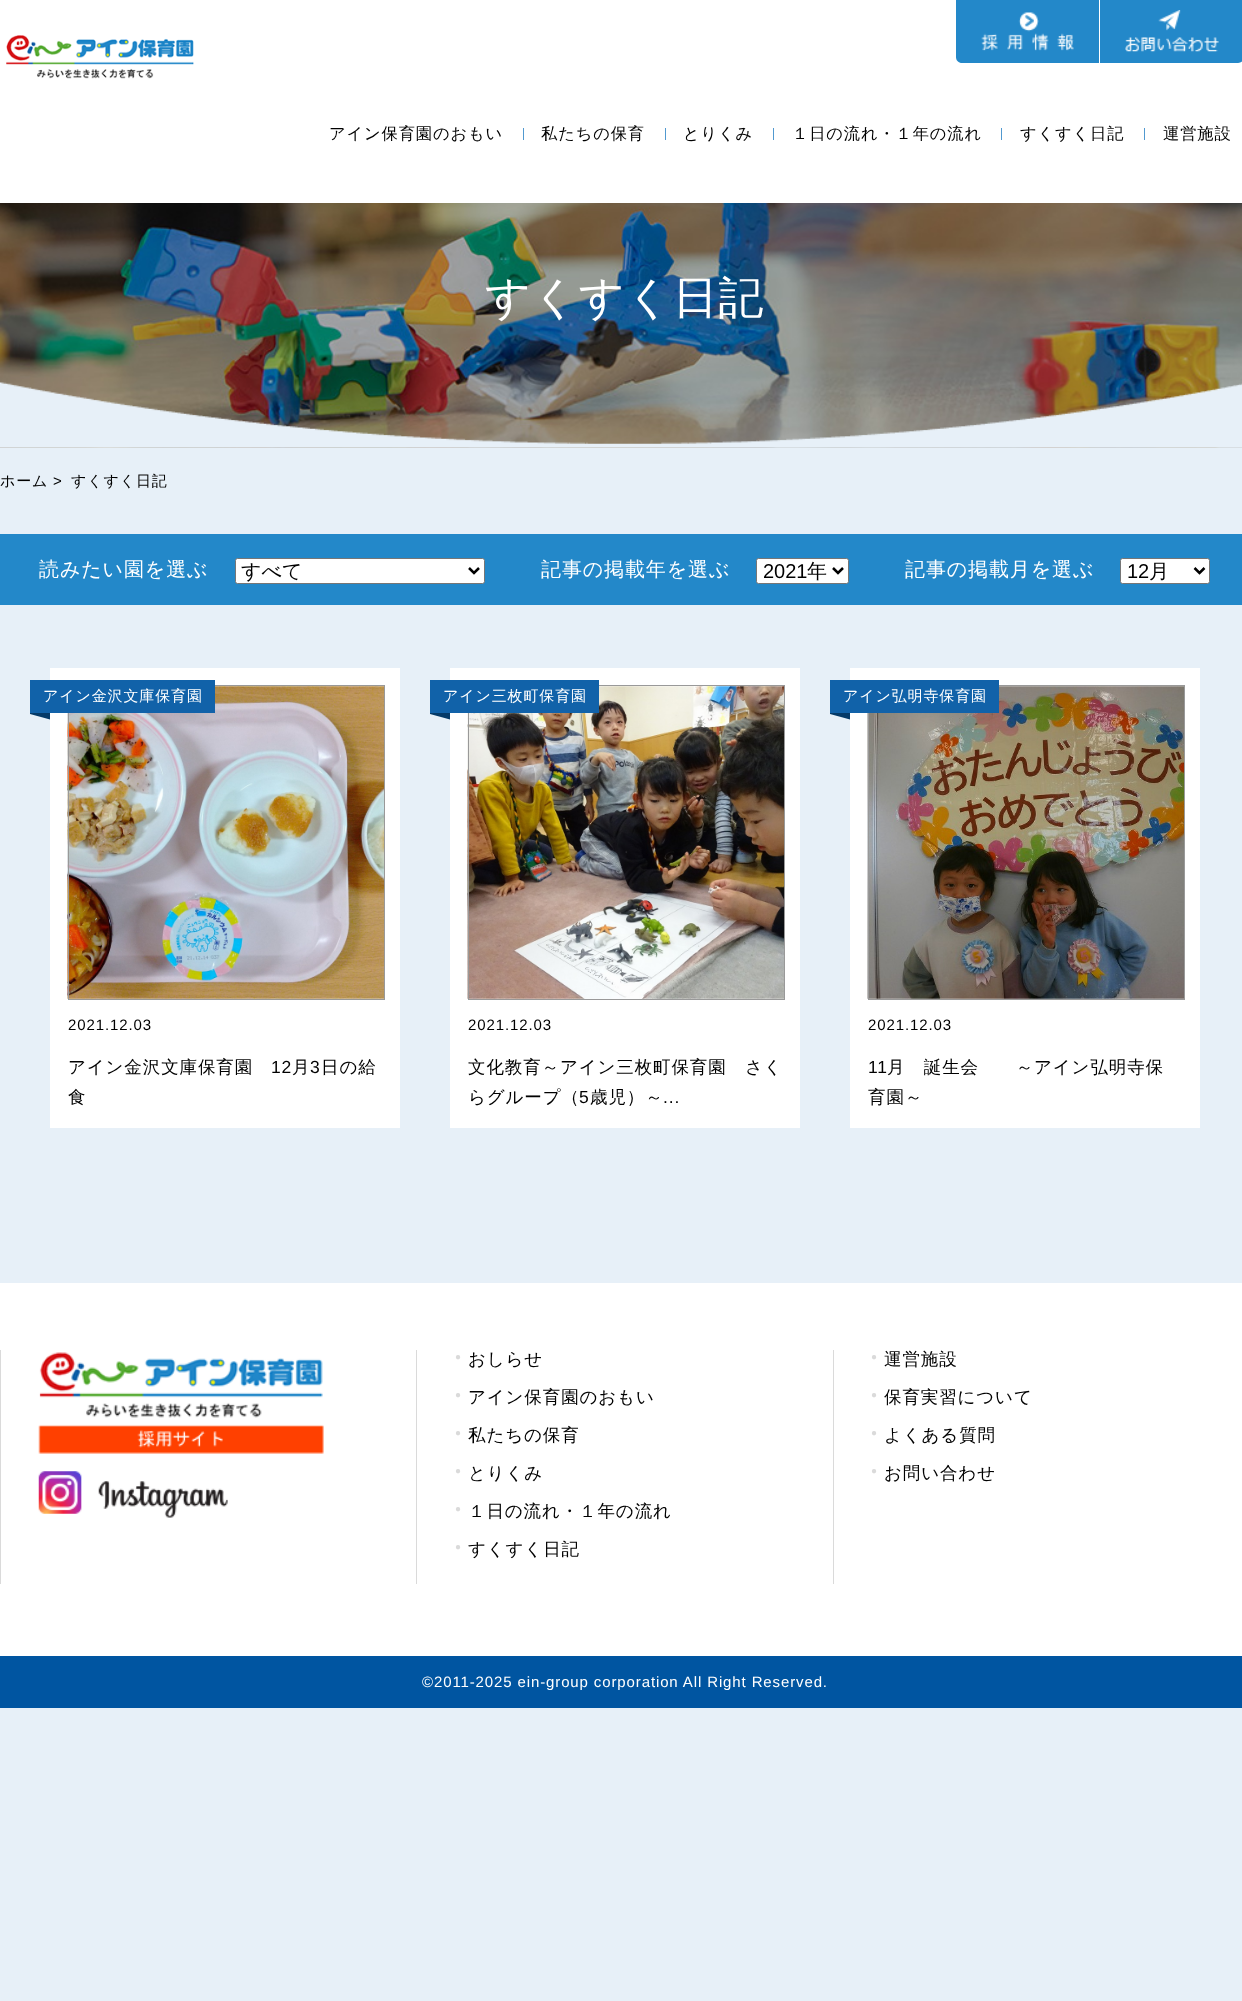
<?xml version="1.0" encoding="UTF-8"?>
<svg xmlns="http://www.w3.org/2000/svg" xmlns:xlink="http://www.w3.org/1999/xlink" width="1242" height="2001">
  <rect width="100%" height="100%" fill="#e7f0f8" />
  <rect width="1242" height="203" fill="#ffffff" />
  <path d="M 956 0 h 143 v 63 h -137 c -3.5 0 -6 -2.5 -6 -6 z" fill="#2388c9" />
  <image x="981" y="12" width="93" height="39" xlink:href="image1.png" />
  <path d="M 1100 0 h 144 v 57 c 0 3.5 -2.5 6 -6 6 h -138 z" fill="#2388c9" />
  <image x="1125" y="10" width="94" height="42" xlink:href="image2.png" />
  <image x="6" y="35" width="188" height="44" xlink:href="image3.png" />
  <rect x="523" y="128" width="1" height="12" fill="#5199d0" />
  <rect x="665" y="128" width="1" height="12" fill="#5199d0" />
  <rect x="773" y="128" width="1" height="12" fill="#5199d0" />
  <rect x="1001" y="128" width="1" height="12" fill="#5199d0" />
  <rect x="1144" y="128" width="1" height="12" fill="#5199d0" />
  <image x="0" y="203" width="1242" height="245" xlink:href="image4.png" />
  <image x="0" y="382" width="1242" height="66" xlink:href="image5.png" />
  <rect y="534" width="1242" height="71" fill="#2388c9" />
  <rect x="235.5" y="558.5" width="249" height="25" rx="2" fill="#ffffff" stroke="#767676" />
  <path d="M 469 568 l 5 5 l 5 -5" fill="none" stroke="#000000" stroke-width="2.5" />
  <rect x="756.5" y="558.5" width="92" height="25" rx="2" fill="#ffffff" stroke="#767676" />
  <path d="M 833 568 l 5 5 l 5 -5" fill="none" stroke="#000000" stroke-width="2.5" />
  <rect x="1120.5" y="558.5" width="89" height="25" rx="2" fill="#ffffff" stroke="#767676" />
  <path d="M 1194.5 568 l 5 5 l 5 -5" fill="none" stroke="#000000" stroke-width="2.5" />
  <rect x="50" y="668" width="350" height="460" fill="#ffffff" />
  <image x="67" y="686" width="317" height="313" xlink:href="image6.png" />
  <rect x="68.5" y="685.5" width="316" height="314" fill="none" stroke="#999999" />
  <path d="M 30 689 l 20 5.5 v 25 l -20 -5.5 z" fill="#053a68" />
  <rect x="30" y="680" width="185" height="33" fill="#1162a9" />
  <rect x="450" y="668" width="350" height="460" fill="#ffffff" />
  <image x="467" y="686" width="317" height="313" xlink:href="image7.png" />
  <rect x="468.5" y="685.5" width="316" height="314" fill="none" stroke="#999999" />
  <path d="M 430 689 l 20 5.5 v 25 l -20 -5.5 z" fill="#053a68" />
  <rect x="430" y="680" width="169" height="33" fill="#1162a9" />
  <rect x="850" y="668" width="350" height="460" fill="#ffffff" />
  <image x="867" y="686" width="317" height="313" xlink:href="image8.png" />
  <rect x="868.5" y="685.5" width="316" height="314" fill="none" stroke="#999999" />
  <path d="M 830 689 l 20 5.5 v 25 l -20 -5.5 z" fill="#053a68" />
  <rect x="830" y="680" width="169" height="33" fill="#1162a9" />
  <rect y="1283" width="1242" height="373" fill="#ffffff" />
  <rect y="1350" width="1" height="234" fill="#dadada" />
  <rect x="416" y="1350" width="1" height="234" fill="#dadada" />
  <image x="38" y="1352" width="286" height="102" xlink:href="image9.png" />
  <image x="38" y="1471" width="190" height="47" xlink:href="image10.png" />
  <rect x="833" y="1350" width="1" height="234" fill="#dadada" />
  <rect y="1656" width="1242" height="52" fill="#0055a1" />
  <text x="329" y="139" style="font-family: WenQuanYi Zen Hei; font-size: 16.25px; font-weight: 500; letter-spacing: 0.88px; fill: #000000">アイン保育園のおもい</text>
  <text x="541" y="139" style="font-family: WenQuanYi Zen Hei; font-size: 16.25px; font-weight: 500; letter-spacing: 0.88px; fill: #000000">私たちの保育</text>
  <text x="683" y="139" style="font-family: WenQuanYi Zen Hei; font-size: 16.25px; font-weight: 500; letter-spacing: 0.88px; fill: #000000">とりくみ</text>
  <text x="792" y="139" style="font-family: WenQuanYi Zen Hei; font-size: 16.25px; font-weight: 500; letter-spacing: 0.88px; fill: #000000">１日の流れ・１年の流れ</text>
  <text x="1020" y="139" style="font-family: WenQuanYi Zen Hei; font-size: 16.25px; font-weight: 500; letter-spacing: 0.88px; fill: #000000">すくすく日記</text>
  <text x="1163" y="139" style="font-family: WenQuanYi Zen Hei; font-size: 16.25px; font-weight: 500; letter-spacing: 0.88px; fill: #000000">運営施設</text>
  <text x="485" y="313" style="font-family: WenQuanYi Zen Hei; font-size: 45px; font-weight: 500; letter-spacing: 0.88px; fill: #ffffff">すくすく日記</text>
  <text x="0" y="486" style="font-family: WenQuanYi Zen Hei; font-size: 15px; font-weight: 500; letter-spacing: 0.88px; fill: #000000">ホーム</text>
  <text x="53" y="486" style="font-family: Liberation Sans; font-size: 15px; letter-spacing: 0.88px; fill: #000000">&gt;</text>
  <text x="71" y="486" style="font-family: WenQuanYi Zen Hei; font-size: 15px; font-weight: 500; letter-spacing: 0.88px; fill: #000000">すくすく日記</text>
  <text x="39" y="576" style="font-family: WenQuanYi Zen Hei; font-size: 20px; font-weight: 500; letter-spacing: 0.88px; fill: #ffffff">読みたい園を選ぶ</text>
  <text x="241" y="578" style="font-family: WenQuanYi Zen Hei; font-size: 20px; font-weight: 500; fill: #000000">すべて</text>
  <text x="541" y="576" style="font-family: WenQuanYi Zen Hei; font-size: 20px; font-weight: 500; letter-spacing: 0.88px; fill: #ffffff">記事の掲載年を選ぶ</text>
  <text x="763" y="578" style="font-family: Liberation Sans; font-size: 20px; fill: #000000">2021</text>
  <text x="807" y="578" style="font-family: WenQuanYi Zen Hei; font-size: 20px; font-weight: 500; fill: #000000">年</text>
  <text x="905" y="576" style="font-family: WenQuanYi Zen Hei; font-size: 20px; font-weight: 500; letter-spacing: 0.88px; fill: #ffffff">記事の掲載月を選ぶ</text>
  <text x="1127" y="578" style="font-family: Liberation Sans; font-size: 20px; fill: #000000">12</text>
  <text x="1149" y="578" style="font-family: WenQuanYi Zen Hei; font-size: 20px; font-weight: 500; fill: #000000">月</text>
  <text x="43" y="701" style="font-family: WenQuanYi Zen Hei; font-size: 15px; font-weight: 500; letter-spacing: 0.88px; fill: #ffffff">アイン金沢文庫保育園</text>
  <text x="68" y="1030" style="font-family: Liberation Sans; font-size: 15px; letter-spacing: 0.88px; fill: #000000">2021.12.03</text>
  <text x="68" y="1073" style="font-family: WenQuanYi Zen Hei; font-size: 17.5px; font-weight: 500; letter-spacing: 0.88px; fill: #000000">アイン金沢文庫保育園</text>
  <text x="271" y="1073" style="font-family: Liberation Sans; font-size: 17.5px; letter-spacing: 0.88px; fill: #000000">12</text>
  <text x="292" y="1073" style="font-family: WenQuanYi Zen Hei; font-size: 17.5px; font-weight: 500; letter-spacing: 0.88px; fill: #000000">月</text>
  <text x="310" y="1073" style="font-family: Liberation Sans; font-size: 17.5px; letter-spacing: 0.88px; fill: #000000">3</text>
  <text x="321" y="1073" style="font-family: WenQuanYi Zen Hei; font-size: 17.5px; font-weight: 500; letter-spacing: 0.88px; fill: #000000">日の給</text>
  <text x="68" y="1103" style="font-family: WenQuanYi Zen Hei; font-size: 17.5px; font-weight: 500; letter-spacing: 0.88px; fill: #000000">食</text>
  <text x="443" y="701" style="font-family: WenQuanYi Zen Hei; font-size: 15px; font-weight: 500; letter-spacing: 0.88px; fill: #ffffff">アイン三枚町保育園</text>
  <text x="468" y="1030" style="font-family: Liberation Sans; font-size: 15px; letter-spacing: 0.88px; fill: #000000">2021.12.03</text>
  <text x="468" y="1073" style="font-family: WenQuanYi Zen Hei; font-size: 17.5px; font-weight: 500; letter-spacing: 0.88px; fill: #000000">文化教育～アイン三枚町保育園　さく</text>
  <text x="468" y="1103" style="font-family: WenQuanYi Zen Hei; font-size: 17.5px; font-weight: 500; letter-spacing: 0.88px; fill: #000000">らグループ（</text>
  <text x="579" y="1103" style="font-family: Liberation Sans; font-size: 17.5px; letter-spacing: 0.88px; fill: #000000">5</text>
  <text x="590" y="1103" style="font-family: WenQuanYi Zen Hei; font-size: 17.5px; font-weight: 500; letter-spacing: 0.88px; fill: #000000">歳児）～</text>
  <text x="663" y="1103" style="font-family: Liberation Sans; font-size: 17.5px; letter-spacing: 0.88px; fill: #000000">...</text>
  <text x="843" y="701" style="font-family: WenQuanYi Zen Hei; font-size: 15px; font-weight: 500; letter-spacing: 0.88px; fill: #ffffff">アイン弘明寺保育園</text>
  <text x="868" y="1030" style="font-family: Liberation Sans; font-size: 15px; letter-spacing: 0.88px; fill: #000000">2021.12.03</text>
  <text x="868" y="1073" style="font-family: Liberation Sans; font-size: 17.5px; letter-spacing: 0.88px; fill: #000000">11</text>
  <text x="887" y="1073" style="font-family: WenQuanYi Zen Hei; font-size: 17.5px; font-weight: 500; letter-spacing: 0.88px; fill: #000000">月　誕生会　　～アイン弘明寺保</text>
  <text x="868" y="1103" style="font-family: WenQuanYi Zen Hei; font-size: 17.5px; font-weight: 500; letter-spacing: 0.88px; fill: #000000">育園～</text>
  <text x="455" y="1360" style="font-family: Liberation Sans; font-size: 10px; letter-spacing: 0.88px; fill: #dadada">●</text>
  <text x="468" y="1365" style="font-family: WenQuanYi Zen Hei; font-size: 17.5px; font-weight: 500; letter-spacing: 0.88px; fill: #000000">おしらせ</text>
  <text x="455" y="1398" style="font-family: Liberation Sans; font-size: 10px; letter-spacing: 0.88px; fill: #dadada">●</text>
  <text x="468" y="1403" style="font-family: WenQuanYi Zen Hei; font-size: 17.5px; font-weight: 500; letter-spacing: 0.88px; fill: #000000">アイン保育園のおもい</text>
  <text x="455" y="1436" style="font-family: Liberation Sans; font-size: 10px; letter-spacing: 0.88px; fill: #dadada">●</text>
  <text x="468" y="1441" style="font-family: WenQuanYi Zen Hei; font-size: 17.5px; font-weight: 500; letter-spacing: 0.88px; fill: #000000">私たちの保育</text>
  <text x="455" y="1474" style="font-family: Liberation Sans; font-size: 10px; letter-spacing: 0.88px; fill: #dadada">●</text>
  <text x="468" y="1479" style="font-family: WenQuanYi Zen Hei; font-size: 17.5px; font-weight: 500; letter-spacing: 0.88px; fill: #000000">とりくみ</text>
  <text x="455" y="1512" style="font-family: Liberation Sans; font-size: 10px; letter-spacing: 0.88px; fill: #dadada">●</text>
  <text x="468" y="1517" style="font-family: WenQuanYi Zen Hei; font-size: 17.5px; font-weight: 500; letter-spacing: 0.88px; fill: #000000">１日の流れ・１年の流れ</text>
  <text x="455" y="1550" style="font-family: Liberation Sans; font-size: 10px; letter-spacing: 0.88px; fill: #dadada">●</text>
  <text x="468" y="1555" style="font-family: WenQuanYi Zen Hei; font-size: 17.5px; font-weight: 500; letter-spacing: 0.88px; fill: #000000">すくすく日記</text>
  <text x="871" y="1360" style="font-family: Liberation Sans; font-size: 10px; letter-spacing: 0.88px; fill: #dadada">●</text>
  <text x="884" y="1365" style="font-family: WenQuanYi Zen Hei; font-size: 17.5px; font-weight: 500; letter-spacing: 0.88px; fill: #000000">運営施設</text>
  <text x="871" y="1398" style="font-family: Liberation Sans; font-size: 10px; letter-spacing: 0.88px; fill: #dadada">●</text>
  <text x="884" y="1403" style="font-family: WenQuanYi Zen Hei; font-size: 17.5px; font-weight: 500; letter-spacing: 0.88px; fill: #000000">保育実習について</text>
  <text x="871" y="1436" style="font-family: Liberation Sans; font-size: 10px; letter-spacing: 0.88px; fill: #dadada">●</text>
  <text x="884" y="1441" style="font-family: WenQuanYi Zen Hei; font-size: 17.5px; font-weight: 500; letter-spacing: 0.88px; fill: #000000">よくある質問</text>
  <text x="871" y="1474" style="font-family: Liberation Sans; font-size: 10px; letter-spacing: 0.88px; fill: #dadada">●</text>
  <text x="884" y="1479" style="font-family: WenQuanYi Zen Hei; font-size: 17.5px; font-weight: 500; letter-spacing: 0.88px; fill: #000000">お問い合わせ</text>
  <text x="422" y="1687" style="font-family: Liberation Sans; font-size: 15px; letter-spacing: 0.88px; fill: #ffffff">©2011-2025 ein-group corporation All Right Reserved.</text>
</svg>
